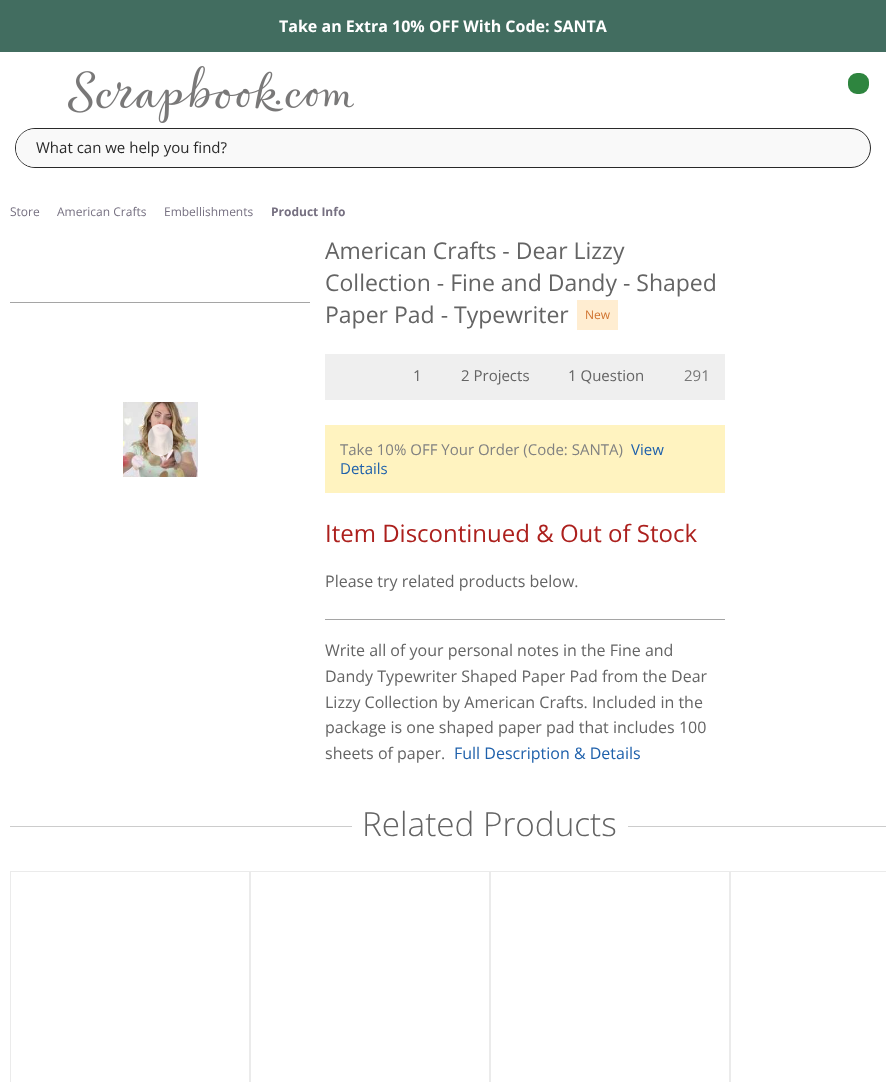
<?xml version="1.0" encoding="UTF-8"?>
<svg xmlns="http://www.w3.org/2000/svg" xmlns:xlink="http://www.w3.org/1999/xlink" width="886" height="1082">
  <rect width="100%" height="100%" fill="#ffffff" />
  <rect width="886" height="52" fill="#426d60" />
  <image x="68" y="66" width="286" height="57" xlink:href="image1.png" />
  <rect x="847" y="72" width="23" height="23" rx="10" fill="#2e853f" stroke="#ffffff" stroke-width="2" />
  <rect x="15.5" y="128.5" width="855" height="39" rx="19.5" fill="#f9f9f9" stroke="#292929" />
  <path d="M 35 129 h 797 v 38 h -797 c -10.5 0 -19 -8.5 -19 -19 c 0 -10.5 8.5 -19 19 -19 z" fill="#f9f9f9" />
  <rect x="10" y="302" width="300" height="1" fill="#a5a5a5" />
  <image x="123" y="402" width="75" height="75" xlink:href="image2.png" />
  <rect x="148" y="424" width="25" height="32" rx="12.5" fill="#ffffff" fill-opacity="0.75" />
  <rect x="577" y="300" width="41" height="30" fill="#ffedd1" />
  <rect x="325" y="354" width="400" height="46" fill="#efefef" />
  <rect x="325" y="425" width="400" height="68" fill="#fff3c0" />
  <rect x="325" y="619" width="400" height="1" fill="#a5a5a5" />
  <rect x="10" y="826" width="876" height="1" fill="#cccccc" />
  <rect x="352" y="826" width="276" height="1" fill="#ffffff" />
  <rect x="10" y="871" width="876" height="1" fill="#ebebeb" />
  <rect x="249" y="871" width="2" height="211" fill="#ebebeb" />
  <rect x="10" y="871" width="1" height="211" fill="#ebebeb" />
  <rect x="489" y="871" width="2" height="211" fill="#ebebeb" />
  <rect x="729" y="871" width="2" height="211" fill="#ebebeb" />
  <text x="279" y="32" style="font-family: Open Sans; font-size: 16px; font-weight: bold; fill: #ffffff">Take an Extra 10% OFF With Code: SANTA</text>
  <text x="36" y="153" style="font-family: Open Sans; font-size: 15px; fill: #292929">What can we help you find?</text>
  <text x="10" y="216" style="font-family: Open Sans; font-size: 12px; fill: #767081">Store</text>
  <text x="57" y="216" style="font-family: Open Sans; font-size: 12px; fill: #767081">American Crafts</text>
  <text x="164" y="216" style="font-family: Open Sans; font-size: 12px; fill: #767081">Embellishments</text>
  <text x="271" y="216" style="font-family: Open Sans; font-size: 12px; font-weight: bold; fill: #767081">Product Info</text>
  <text x="325" y="259" style="font-family: Open Sans; font-size: 23px; fill: #646464">American Crafts - Dear Lizzy</text>
  <text x="325" y="291" style="font-family: Open Sans; font-size: 23px; fill: #646464">Collection - Fine and Dandy - Shaped</text>
  <text x="325" y="323" style="font-family: Open Sans; font-size: 23px; fill: #646464">Paper Pad - Typewriter</text>
  <text x="585" y="319" style="font-family: Open Sans; font-size: 12px; fill: #d0732f">New</text>
  <text x="413" y="381" style="font-family: Open Sans; font-size: 15px; fill: #646464">1</text>
  <text x="461" y="381" style="font-family: Open Sans; font-size: 15px; fill: #646464">2 Projects</text>
  <text x="568" y="381" style="font-family: Open Sans; font-size: 15px; fill: #646464">1 Question</text>
  <text x="684" y="381" style="font-family: Open Sans; font-size: 15px; fill: #777777">291</text>
  <text x="340" y="455" style="font-family: Open Sans; font-size: 15px; fill: #818181">Take 10% OFF Your Order (Code: SANTA)</text>
  <text x="631" y="455" style="font-family: Open Sans; font-size: 15px; fill: #1e60ab">View</text>
  <text x="340" y="474" style="font-family: Open Sans; font-size: 15px; fill: #1e60ab">Details</text>
  <text x="325" y="542" style="font-family: Open Sans; font-size: 24px; fill: #ac201d">Item Discontinued &amp; Out of Stock</text>
  <text x="325" y="587" style="font-family: Open Sans; font-size: 16px; fill: #646464">Please try related products below.</text>
  <text x="325" y="656" style="font-family: Open Sans; font-size: 16px; fill: #646464">Write all of your personal notes in the Fine and</text>
  <text x="325" y="682" style="font-family: Open Sans; font-size: 16px; fill: #646464">Dandy Typewriter Shaped Paper Pad from the Dear</text>
  <text x="325" y="708" style="font-family: Open Sans; font-size: 16px; fill: #646464">Lizzy Collection by American Crafts. Included in the</text>
  <text x="325" y="733" style="font-family: Open Sans; font-size: 16px; fill: #646464">package is one shaped paper pad that includes 100</text>
  <text x="325" y="759" style="font-family: Open Sans; font-size: 16px; fill: #646464">sheets of paper.</text>
  <text x="454" y="759" style="font-family: Open Sans; font-size: 16px; fill: #1e60ab">Full Description &amp; Details</text>
  <text x="362" y="836" style="font-family: Open Sans; font-size: 33.25px; font-weight: 300; fill: #646464">Related Products</text>
</svg>
